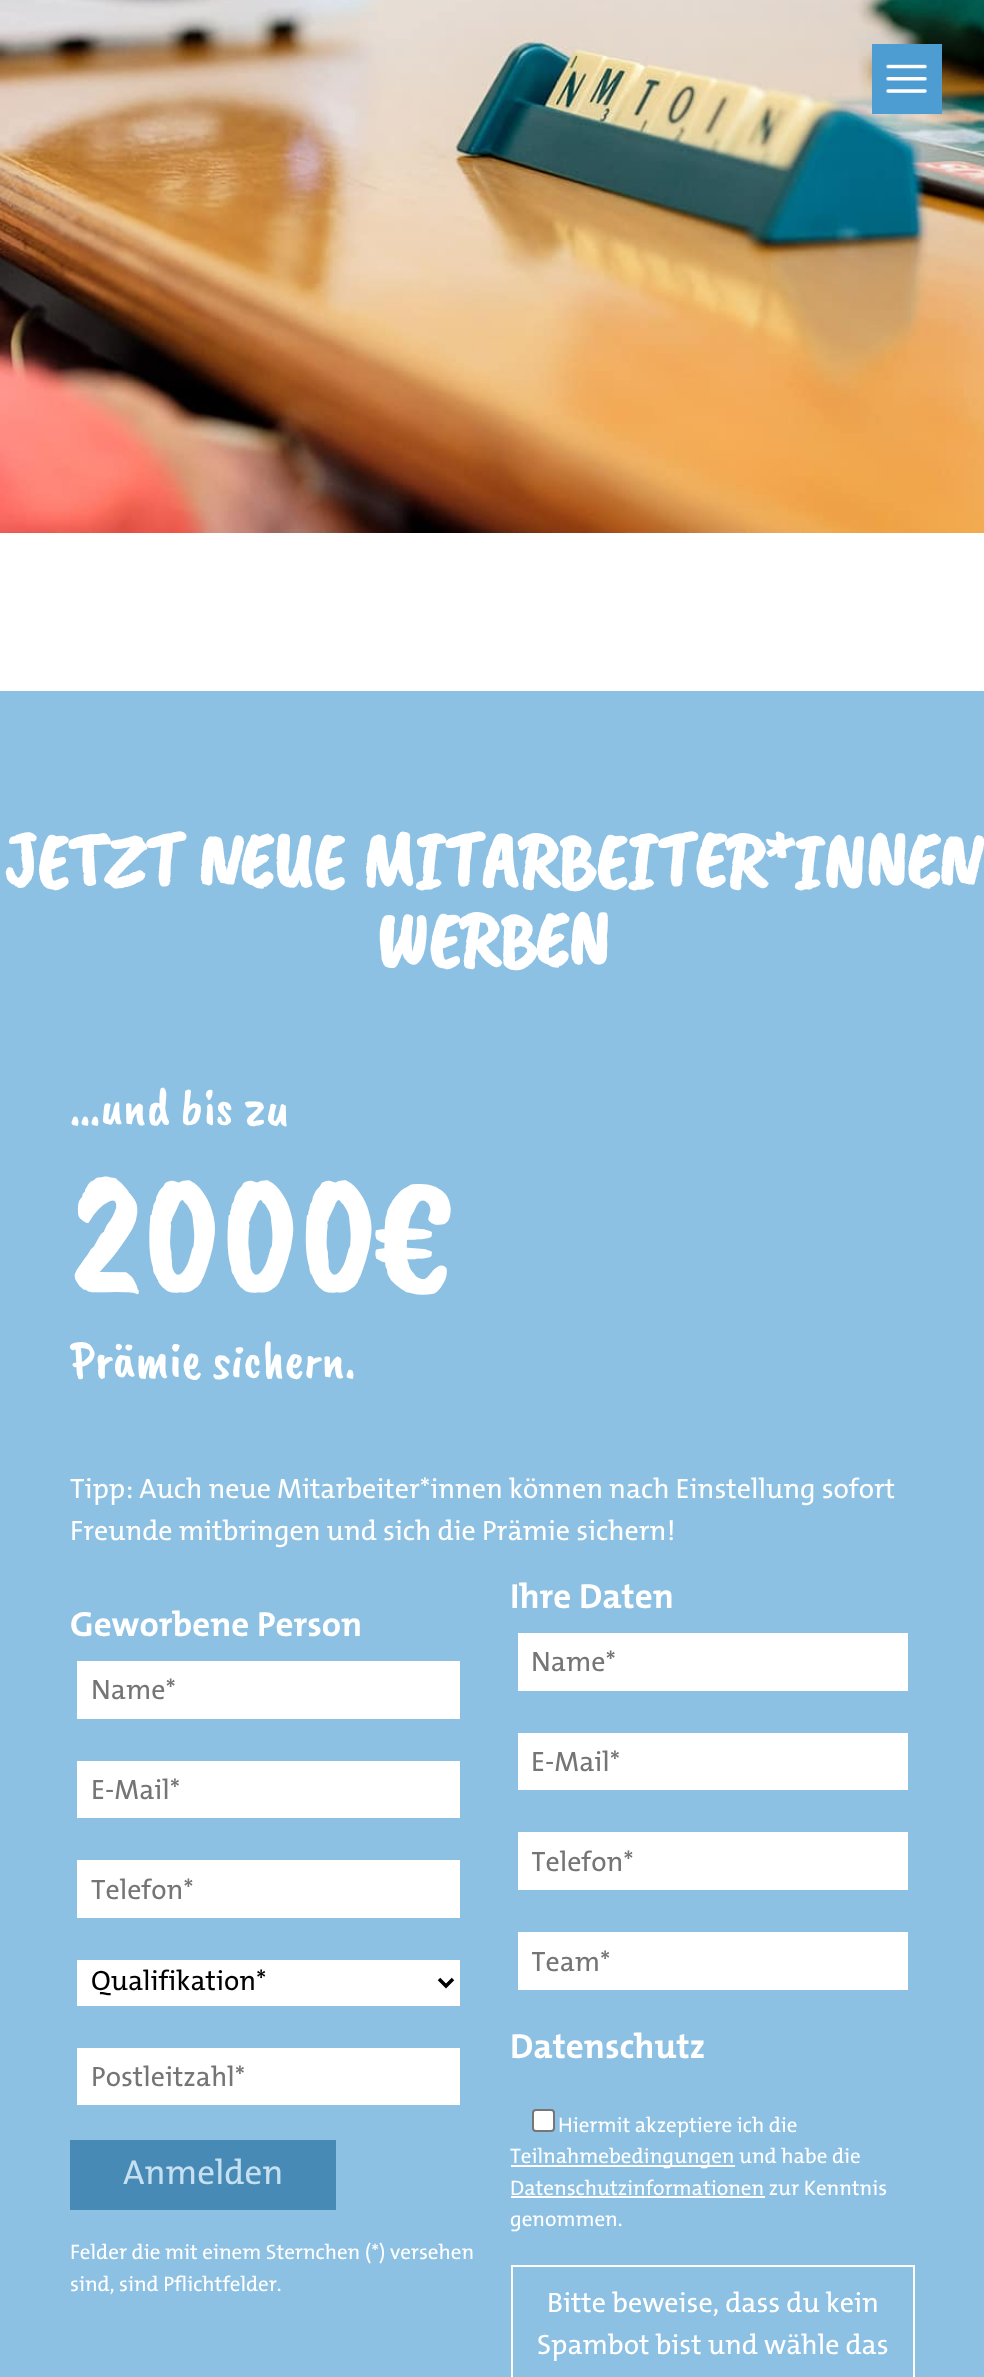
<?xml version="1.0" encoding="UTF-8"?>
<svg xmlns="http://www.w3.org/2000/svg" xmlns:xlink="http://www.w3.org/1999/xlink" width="984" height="2377">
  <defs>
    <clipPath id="clip1"><rect x="532" y="1850" width="362" height="28" /></clipPath>
    <clipPath id="clip2"><rect x="532" y="1950" width="362" height="28" /></clipPath>
  </defs>
  <rect width="100%" height="100%" fill="#ffffff" />
  <image x="0" y="0" width="984" height="533" xlink:href="image1.png" />
  <rect x="872" y="44" width="70" height="70" fill="#4d9dd3" />
  <image x="886" y="64" width="41" height="29" xlink:href="image2.png" />
  <rect y="691" width="984" height="1686" fill="#8dc1e3" />
  <rect x="77" y="1661" width="383" height="58" fill="#ffffff" />
  <rect x="77" y="1761" width="383" height="57" fill="#ffffff" />
  <rect x="77" y="1860" width="383" height="58" fill="#ffffff" />
  <rect x="77" y="1960" width="383" height="46" fill="#ffffff" />
  <path d="M 439 1979 l 7 7 l 7 -7" fill="none" stroke="#000000" stroke-width="3.5" />
  <rect x="77" y="2048" width="383" height="57" fill="#ffffff" />
  <rect x="518" y="1633" width="390" height="58" fill="#ffffff" />
  <rect x="518" y="1733" width="390" height="57" fill="#ffffff" />
  <rect x="518" y="1832" width="390" height="58" fill="#ffffff" />
  <rect x="518" y="1932" width="390" height="58" fill="#ffffff" />
  <rect x="533" y="2110" width="21" height="21" rx="3" fill="#ffffff" stroke="#767676" stroke-width="2" />
  <rect x="511" y="2165" width="224" height="2" fill="#ffffff" />
  <rect x="511" y="2196" width="254" height="2" fill="#ffffff" />
  <rect x="512" y="2266" width="402" height="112" fill="none" stroke="#ffffff" stroke-width="2" />
  <rect x="70" y="2140" width="266" height="70" fill="#478ab5" />
  <text x="4" y="887" style="font-family: Caveat Brush; font-size: 78.75px; font-weight: bold; fill: #ffffff">JETZT NEUE MITARBEITER*INNEN</text>
  <text x="376" y="966" style="font-family: Caveat Brush; font-size: 78.75px; font-weight: bold; fill: #ffffff">WERBEN</text>
  <text x="70" y="1124" style="font-family: Caveat Brush; font-size: 52.5px; fill: #ffffff">…und bis zu</text>
  <text x="70" y="1292" style="font-family: Caveat Brush; font-size: 175px; fill: #ffffff">2000€</text>
  <text x="70" y="1377" style="font-family: Caveat Brush; font-size: 52.5px; fill: #ffffff">Prämie sichern.</text>
  <text x="70" y="1498" style="font-family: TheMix; font-size: 28px; fill: #ffffff">Tipp: Auch neue Mitarbeiter*innen können nach Einstellung sofort</text>
  <text x="70" y="1540" style="font-family: TheMix; font-size: 28px; fill: #ffffff">Freunde mitbringen und sich die Prämie sichern!</text>
  <text x="70" y="1636" style="font-family: TheMix; font-size: 35px; font-weight: bold; fill: #ffffff">Geworbene Person</text>
  <text x="91" y="1699" style="font-family: TheMix; font-size: 28px; fill: #757575">Name*</text>
  <text x="91" y="1799" style="font-family: TheMix; font-size: 28px; fill: #757575">E-Mail*</text>
  <text x="91" y="1899" style="font-family: TheMix; font-size: 28px; fill: #757575">Telefon*</text>
  <text x="91" y="1990" style="font-family: TheMix; font-size: 28px; fill: #000000">Qualifikation*</text>
  <text x="91" y="2086" style="font-family: TheMix; font-size: 28px; fill: #757575">Postleitzahl*</text>
  <text x="510" y="1608" style="font-family: TheMix; font-size: 35px; font-weight: bold; fill: #ffffff">Ihre Daten</text>
  <text x="531" y="1671" style="font-family: TheMix; font-size: 28px; fill: #757575">Name*</text>
  <text x="531" y="1771" style="font-family: TheMix; font-size: 28px; fill: #757575">E-Mail*</text>
  <g clip-path="url(#clip1)">
    <text x="531" y="1871" style="font-family: TheMix; font-size: 28px; fill: #757575">Telefon*</text>
  </g>
  <g clip-path="url(#clip2)">
    <text x="531" y="1971" style="font-family: TheMix; font-size: 28px; fill: #757575">Team*</text>
  </g>
  <text x="510" y="2058" style="font-family: TheMix; font-size: 35px; font-weight: bold; fill: #ffffff">Datenschutz</text>
  <text x="558" y="2132" style="font-family: TheMix; font-size: 21px; fill: #ffffff">Hiermit akzeptiere ich die</text>
  <text x="510" y="2163" style="font-family: TheMix; font-size: 21px; fill: #ffffff">Teilnahmebedingungen und habe die</text>
  <text x="510" y="2195" style="font-family: TheMix; font-size: 21px; fill: #ffffff">Datenschutzinformationen zur Kenntnis</text>
  <text x="510" y="2226" style="font-family: TheMix; font-size: 21px; fill: #ffffff">genommen.</text>
  <text x="547" y="2312" style="font-family: TheMix; font-size: 28px; fill: #ffffff">Bitte beweise, dass du kein</text>
  <text x="537" y="2354" style="font-family: TheMix; font-size: 28px; fill: #ffffff">Spambot bist und wähle das</text>
  <text x="123" y="2184" style="font-family: TheMix; font-size: 35px; fill: #c6e0f1">Anmelden</text>
  <text x="70" y="2259" style="font-family: TheMix; font-size: 21px; fill: #ffffff">Felder die mit einem Sternchen (*) versehen</text>
  <text x="70" y="2291" style="font-family: TheMix; font-size: 21px; fill: #ffffff">sind, sind Pflichtfelder.</text>
</svg>
